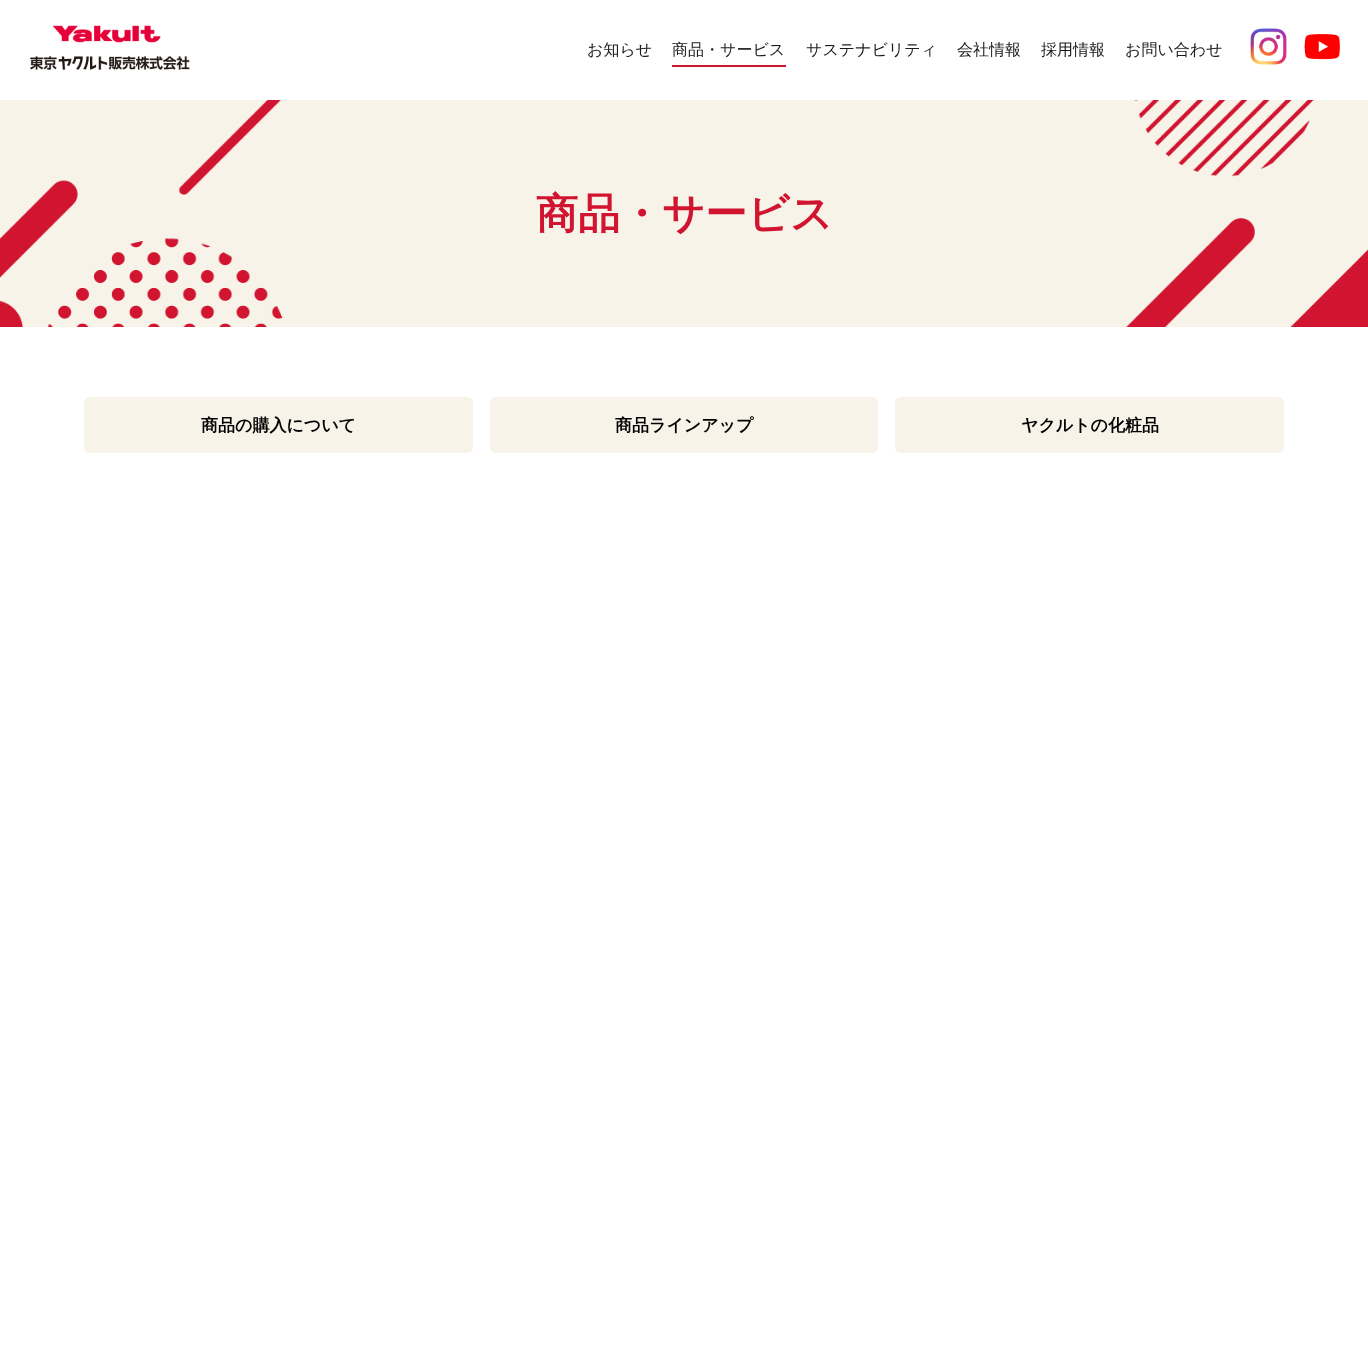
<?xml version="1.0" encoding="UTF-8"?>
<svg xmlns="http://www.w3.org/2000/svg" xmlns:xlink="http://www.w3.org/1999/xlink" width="1368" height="1350">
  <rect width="100%" height="100%" fill="#ffffff" />
  <image x="30" y="25" width="160" height="45" xlink:href="image1.png" />
  <rect x="672" y="65" width="114" height="2" fill="#d11530" />
  <image x="1250" y="28" width="37" height="37" xlink:href="image2.png" />
  <image x="1304" y="34" width="36" height="26" xlink:href="image3.png" />
  <rect y="100" width="1368" height="227" fill="#f7f3e9" />
  <image x="0" y="100" width="1368" height="227" xlink:href="image4.png" />
  <rect x="84" y="397" width="389" height="56" rx="6" fill="#f7f3e9" />
  <rect x="490" y="397" width="388" height="56" rx="6" fill="#f7f3e9" />
  <rect x="895" y="397" width="389" height="56" rx="6" fill="#f7f3e9" />
  <text x="587" y="55" style="font-family: WenQuanYi Zen Hei; font-size: 16px; font-weight: 500; fill: #1a1a1a">お知らせ</text>
  <text x="672" y="55" style="font-family: WenQuanYi Zen Hei; font-size: 16px; font-weight: 500; fill: #1a1a1a">商品・サービス</text>
  <text x="806" y="55" style="font-family: WenQuanYi Zen Hei; font-size: 16px; font-weight: 500; fill: #1a1a1a">サステナビリティ</text>
  <text x="957" y="55" style="font-family: WenQuanYi Zen Hei; font-size: 16px; font-weight: 500; fill: #1a1a1a">会社情報</text>
  <text x="1041" y="55" style="font-family: WenQuanYi Zen Hei; font-size: 16px; font-weight: 500; fill: #1a1a1a">採用情報</text>
  <text x="1125" y="55" style="font-family: WenQuanYi Zen Hei; font-size: 16px; font-weight: 500; fill: #1a1a1a">お問い合わせ</text>
  <text x="536" y="228" style="font-family: WenQuanYi Zen Hei; font-size: 42px; font-weight: bold; fill: #d11530">商品・サービス</text>
  <text x="201" y="431" style="font-family: WenQuanYi Zen Hei; font-size: 17px; font-weight: bold; fill: #000000">商品の購入について</text>
  <text x="615" y="431" style="font-family: WenQuanYi Zen Hei; font-size: 17px; font-weight: bold; fill: #000000">商品ラインアップ</text>
  <text x="1021" y="431" style="font-family: WenQuanYi Zen Hei; font-size: 17px; font-weight: bold; fill: #000000">ヤクルトの化粧品</text>
</svg>
